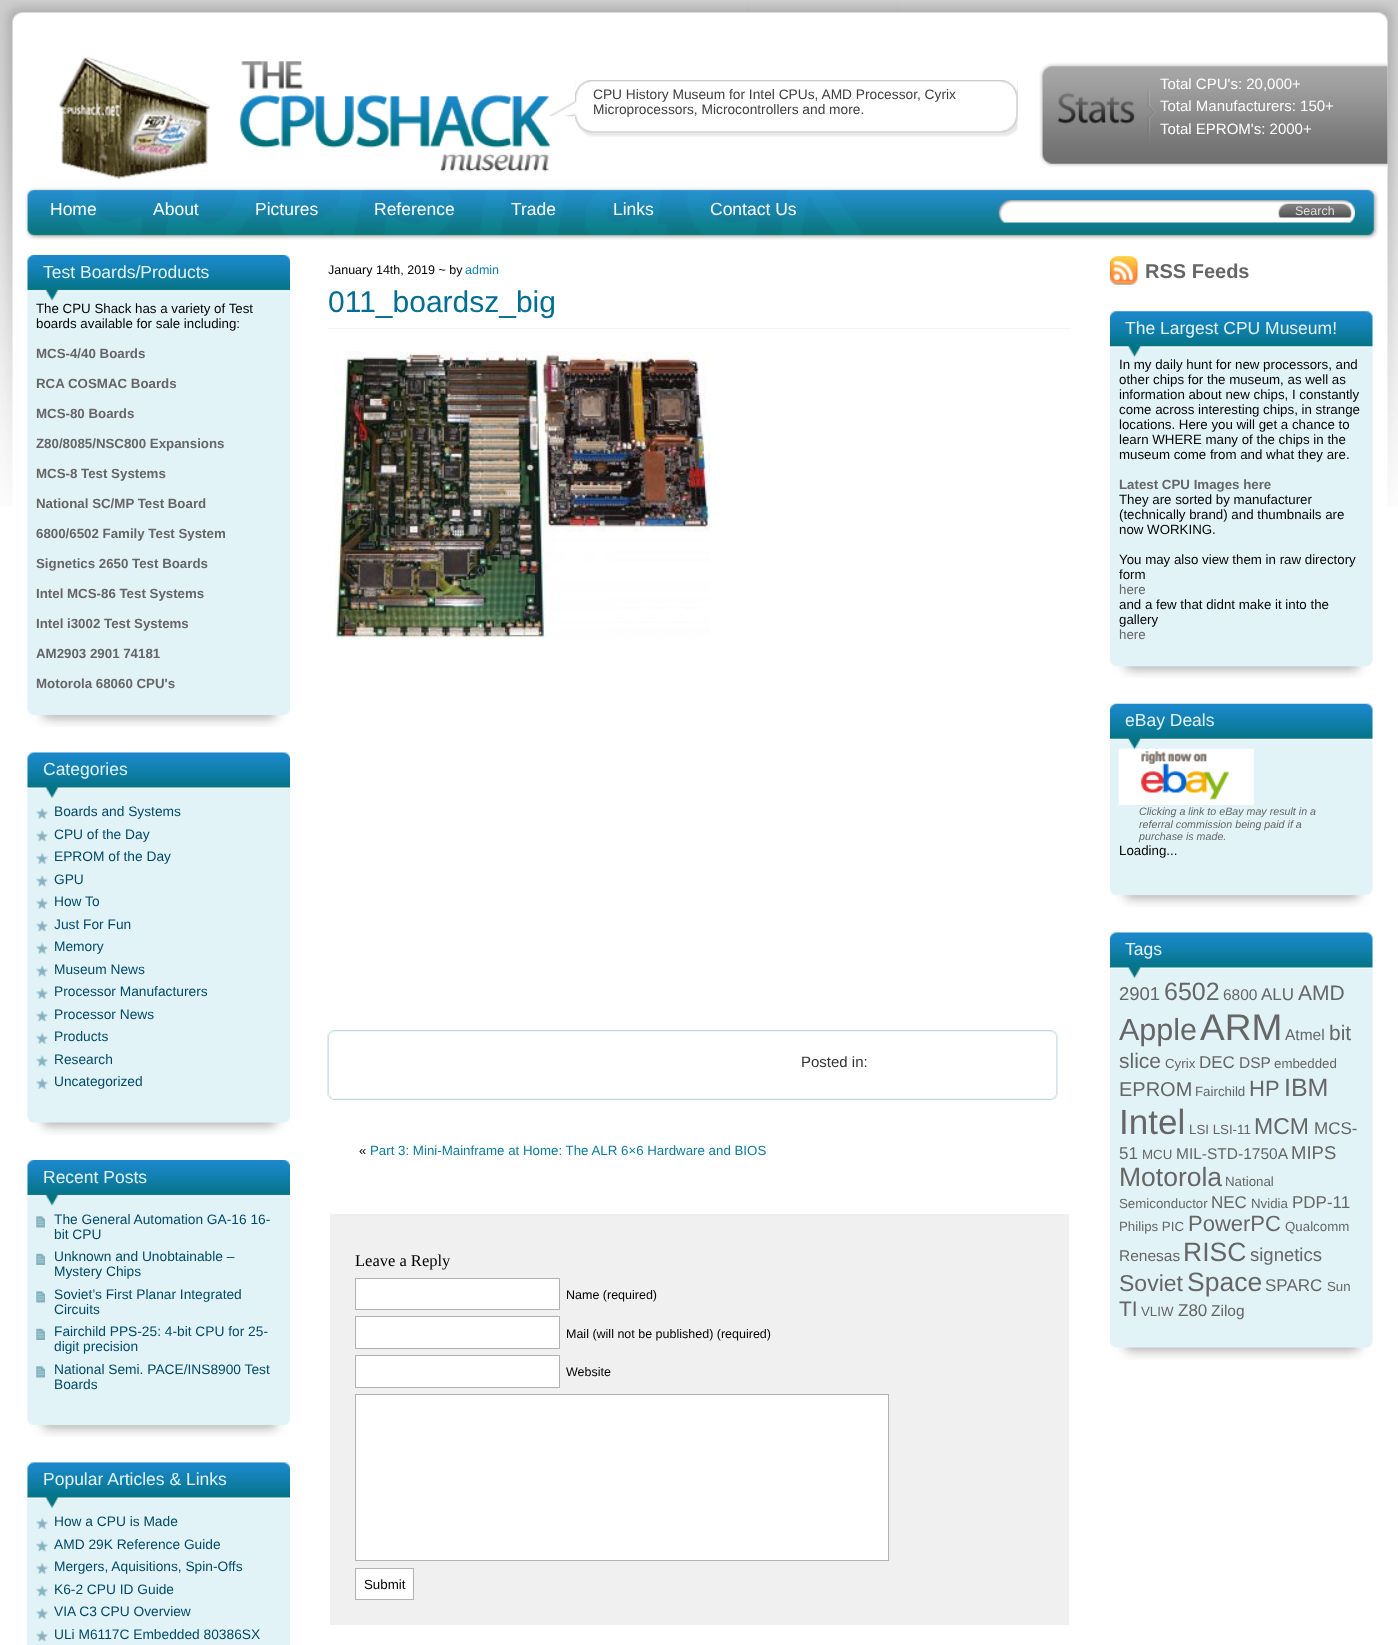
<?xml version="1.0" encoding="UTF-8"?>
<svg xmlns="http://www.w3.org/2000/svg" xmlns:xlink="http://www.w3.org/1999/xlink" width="1398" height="1645">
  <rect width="100%" height="100%" fill="#ffffff" />
  <image x="0" y="0" width="1398" height="1" xlink:href="image1.png" />
  <image x="0" y="1" width="1398" height="506" xlink:href="image2.png" />
  <image x="58" y="57" width="153" height="122" xlink:href="image3.png" />
  <image x="239" y="61" width="312" height="111" xlink:href="image4.png" />
  <image x="575" y="80" width="443" height="57" xlink:href="image5.png" />
  <image x="549" y="80" width="469" height="37" xlink:href="image6.png" />
  <image x="1039" y="62" width="349" height="106" xlink:href="image7.png" />
  <image x="25" y="187" width="1354" height="53" xlink:href="image8.png" />
  <image x="998" y="200" width="357" height="23" xlink:href="image9.png" />
  <image x="1278" y="203" width="74" height="15" xlink:href="image10.png" />
  <image x="27" y="255" width="263" height="472" xlink:href="image11.png" />
  <image x="27" y="255" width="263" height="454" xlink:href="image12.png" />
  <image x="27" y="752" width="263" height="383" xlink:href="image13.png" />
  <image x="27" y="752" width="263" height="364" xlink:href="image14.png" />
  <image x="36" y="807" width="13" height="12" xlink:href="image15.png" />
  <image x="36" y="830" width="13" height="12" xlink:href="image16.png" />
  <image x="36" y="852" width="13" height="12" xlink:href="image15.png" />
  <image x="36" y="875" width="13" height="12" xlink:href="image16.png" />
  <image x="36" y="897" width="13" height="12" xlink:href="image15.png" />
  <image x="36" y="920" width="13" height="12" xlink:href="image16.png" />
  <image x="36" y="942" width="13" height="12" xlink:href="image15.png" />
  <image x="36" y="965" width="13" height="12" xlink:href="image16.png" />
  <image x="36" y="987" width="13" height="12" xlink:href="image15.png" />
  <image x="36" y="1010" width="13" height="12" xlink:href="image16.png" />
  <image x="36" y="1032" width="13" height="12" xlink:href="image15.png" />
  <image x="36" y="1055" width="13" height="12" xlink:href="image16.png" />
  <image x="36" y="1077" width="13" height="12" xlink:href="image15.png" />
  <image x="27" y="1160" width="263" height="277" xlink:href="image17.png" />
  <image x="27" y="1160" width="263" height="259" xlink:href="image18.png" />
  <image x="36" y="1216" width="9" height="12" xlink:href="image19.png" />
  <image x="36" y="1253" width="9" height="12" xlink:href="image20.png" />
  <image x="36" y="1291" width="9" height="12" xlink:href="image19.png" />
  <image x="36" y="1328" width="9" height="12" xlink:href="image20.png" />
  <image x="36" y="1366" width="9" height="12" xlink:href="image19.png" />
  <rect x="27" y="1462" width="263" height="183" fill="#e2f3f8" />
  <image x="27" y="1462" width="263" height="47" xlink:href="image21.png" />
  <image x="36" y="1517" width="13" height="12" xlink:href="image15.png" />
  <image x="36" y="1540" width="13" height="12" xlink:href="image16.png" />
  <image x="36" y="1562" width="13" height="12" xlink:href="image22.png" />
  <image x="36" y="1585" width="13" height="12" xlink:href="image16.png" />
  <image x="36" y="1607" width="13" height="12" xlink:href="image15.png" />
  <image x="36" y="1630" width="13" height="12" xlink:href="image16.png" />
  <rect x="328" y="328" width="743" height="1" fill="#f3f3f3" />
  <image x="335" y="351" width="375" height="288" xlink:href="image23.png" />
  <image x="332" y="1030" width="726" height="65" xlink:href="image24.png" />
  <image x="327" y="1030" width="6" height="65" xlink:href="image25.png" />
  <image x="332" y="1095" width="726" height="5" xlink:href="image26.png" />
  <image x="327" y="1095" width="6" height="5" xlink:href="image27.png" />
  <rect x="330" y="1214" width="739" height="411" fill="#f0f0f0" />
  <rect x="355.5" y="1278.5" width="204" height="31" fill="#ffffff" stroke="#b2b2b2" />
  <rect x="355.5" y="1316.5" width="204" height="32" fill="#ffffff" stroke="#b2b2b2" />
  <rect x="355.5" y="1355.5" width="204" height="32" fill="#ffffff" stroke="#b2b2b2" />
  <rect x="355.5" y="1394.5" width="533" height="166" fill="#ffffff" stroke="#b2b2b2" />
  <rect x="355.5" y="1568.5" width="58" height="31" fill="#ffffff" stroke="#b2b2b2" />
  <image x="1110" y="256" width="28" height="29" xlink:href="image28.png" />
  <image x="1110" y="311" width="263" height="367" xlink:href="image29.png" />
  <image x="1110" y="311" width="263" height="349" xlink:href="image30.png" />
  <image x="1110" y="703" width="263" height="204" xlink:href="image31.png" />
  <image x="1110" y="703" width="263" height="186" xlink:href="image32.png" />
  <image x="1118" y="748" width="136" height="57" xlink:href="image33.png" />
  <image x="1110" y="932" width="263" height="428" xlink:href="image34.png" />
  <image x="1110" y="932" width="263" height="409" xlink:href="image35.png" />
  <text x="593" y="99" style="font-family: Liberation Sans; font-size: 13.75px; fill: #404040">CPU History Museum for Intel CPUs, AMD Processor, Cyrix</text>
  <text x="593" y="114" style="font-family: Liberation Sans; font-size: 13.75px; fill: #404040">Microprocessors, Microcontrollers and more.</text>
  <text x="1160" y="89" style="font-family: Liberation Sans; font-size: 15px; fill: #ffffff">Total CPU's: 20,000+</text>
  <text x="1160" y="111" style="font-family: Liberation Sans; font-size: 15px; fill: #ffffff">Total Manufacturers: 150+</text>
  <text x="1160" y="134" style="font-family: Liberation Sans; font-size: 15px; fill: #ffffff">Total EPROM's: 2000+</text>
  <text x="50" y="215" style="font-family: Liberation Sans; font-size: 17.5px; fill: #ffffff">Home</text>
  <text x="153" y="215" style="font-family: Liberation Sans; font-size: 17.5px; fill: #ffffff">About</text>
  <text x="255" y="215" style="font-family: Liberation Sans; font-size: 17.5px; fill: #ffffff">Pictures</text>
  <text x="374" y="215" style="font-family: Liberation Sans; font-size: 17.5px; fill: #ffffff">Reference</text>
  <text x="511" y="215" style="font-family: Liberation Sans; font-size: 17.5px; fill: #ffffff">Trade</text>
  <text x="613" y="215" style="font-family: Liberation Sans; font-size: 17.5px; fill: #ffffff">Links</text>
  <text x="710" y="215" style="font-family: Liberation Sans; font-size: 17.5px; fill: #ffffff">Contact Us</text>
  <text x="1295" y="215" style="font-family: Liberation Sans; font-size: 12.5px; fill: #dddddd">Search</text>
  <text x="43" y="278" style="font-family: Liberation Sans; font-size: 17.5px; fill: #e2f3f8">Test Boards/Products</text>
  <text x="36" y="313" style="font-family: Liberation Sans; font-size: 13.3px; fill: #000000">The CPU Shack has a variety of Test</text>
  <text x="36" y="328" style="font-family: Liberation Sans; font-size: 13.3px; fill: #000000">boards available for sale including:</text>
  <text x="36" y="358" style="font-family: Liberation Sans; font-size: 13.3px; font-weight: bold; fill: #666666">MCS-4/40 Boards</text>
  <text x="36" y="388" style="font-family: Liberation Sans; font-size: 13.3px; font-weight: bold; fill: #666666">RCA COSMAC Boards</text>
  <text x="36" y="418" style="font-family: Liberation Sans; font-size: 13.3px; font-weight: bold; fill: #666666">MCS-80 Boards</text>
  <text x="36" y="448" style="font-family: Liberation Sans; font-size: 13.3px; font-weight: bold; fill: #666666">Z80/8085/NSC800 Expansions</text>
  <text x="36" y="478" style="font-family: Liberation Sans; font-size: 13.3px; font-weight: bold; fill: #666666">MCS-8 Test Systems</text>
  <text x="36" y="508" style="font-family: Liberation Sans; font-size: 13.3px; font-weight: bold; fill: #666666">National SC/MP Test Board</text>
  <text x="36" y="538" style="font-family: Liberation Sans; font-size: 13.3px; font-weight: bold; fill: #666666">6800/6502 Family Test System</text>
  <text x="36" y="568" style="font-family: Liberation Sans; font-size: 13.3px; font-weight: bold; fill: #666666">Signetics 2650 Test Boards</text>
  <text x="36" y="598" style="font-family: Liberation Sans; font-size: 13.3px; font-weight: bold; fill: #666666">Intel MCS-86 Test Systems</text>
  <text x="36" y="628" style="font-family: Liberation Sans; font-size: 13.3px; font-weight: bold; fill: #666666">Intel i3002 Test Systems</text>
  <text x="36" y="658" style="font-family: Liberation Sans; font-size: 13.3px; font-weight: bold; fill: #666666">AM2903 2901 74181</text>
  <text x="36" y="688" style="font-family: Liberation Sans; font-size: 13.3px; font-weight: bold; fill: #666666">Motorola 68060 CPU's</text>
  <text x="43" y="775" style="font-family: Liberation Sans; font-size: 17.5px; fill: #e2f3f8">Categories</text>
  <text x="54" y="816" style="font-family: Liberation Sans; font-size: 13.75px; fill: #004a69">Boards and Systems</text>
  <text x="54" y="839" style="font-family: Liberation Sans; font-size: 13.75px; fill: #004a69">CPU of the Day</text>
  <text x="54" y="861" style="font-family: Liberation Sans; font-size: 13.75px; fill: #004a69">EPROM of the Day</text>
  <text x="54" y="884" style="font-family: Liberation Sans; font-size: 13.75px; fill: #004a69">GPU</text>
  <text x="54" y="906" style="font-family: Liberation Sans; font-size: 13.75px; fill: #004a69">How To</text>
  <text x="54" y="929" style="font-family: Liberation Sans; font-size: 13.75px; fill: #004a69">Just For Fun</text>
  <text x="54" y="951" style="font-family: Liberation Sans; font-size: 13.75px; fill: #004a69">Memory</text>
  <text x="54" y="974" style="font-family: Liberation Sans; font-size: 13.75px; fill: #004a69">Museum News</text>
  <text x="54" y="996" style="font-family: Liberation Sans; font-size: 13.75px; fill: #004a69">Processor Manufacturers</text>
  <text x="54" y="1019" style="font-family: Liberation Sans; font-size: 13.75px; fill: #004a69">Processor News</text>
  <text x="54" y="1041" style="font-family: Liberation Sans; font-size: 13.75px; fill: #004a69">Products</text>
  <text x="54" y="1064" style="font-family: Liberation Sans; font-size: 13.75px; fill: #004a69">Research</text>
  <text x="54" y="1086" style="font-family: Liberation Sans; font-size: 13.75px; fill: #004a69">Uncategorized</text>
  <text x="43" y="1183" style="font-family: Liberation Sans; font-size: 17.5px; fill: #e2f3f8">Recent Posts</text>
  <text x="54" y="1224" style="font-family: Liberation Sans; font-size: 13.75px; fill: #004a69">The General Automation GA-16 16-</text>
  <text x="54" y="1239" style="font-family: Liberation Sans; font-size: 13.75px; fill: #004a69">bit CPU</text>
  <text x="54" y="1261" style="font-family: Liberation Sans; font-size: 13.75px; fill: #004a69">Unknown and Unobtainable –</text>
  <text x="54" y="1276" style="font-family: Liberation Sans; font-size: 13.75px; fill: #004a69">Mystery Chips</text>
  <text x="54" y="1299" style="font-family: Liberation Sans; font-size: 13.75px; fill: #004a69">Soviet’s First Planar Integrated</text>
  <text x="54" y="1314" style="font-family: Liberation Sans; font-size: 13.75px; fill: #004a69">Circuits</text>
  <text x="54" y="1336" style="font-family: Liberation Sans; font-size: 13.75px; fill: #004a69">Fairchild PPS-25: 4-bit CPU for 25-</text>
  <text x="54" y="1351" style="font-family: Liberation Sans; font-size: 13.75px; fill: #004a69">digit precision</text>
  <text x="54" y="1374" style="font-family: Liberation Sans; font-size: 13.75px; fill: #004a69">National Semi. PACE/INS8900 Test</text>
  <text x="54" y="1389" style="font-family: Liberation Sans; font-size: 13.75px; fill: #004a69">Boards</text>
  <text x="43" y="1485" style="font-family: Liberation Sans; font-size: 17.5px; fill: #e2f3f8">Popular Articles &amp; Links</text>
  <text x="54" y="1526" style="font-family: Liberation Sans; font-size: 13.75px; fill: #004a69">How a CPU is Made</text>
  <text x="54" y="1549" style="font-family: Liberation Sans; font-size: 13.75px; fill: #004a69">AMD 29K Reference Guide</text>
  <text x="54" y="1571" style="font-family: Liberation Sans; font-size: 13.75px; fill: #004a69">Mergers, Aquisitions, Spin-Offs</text>
  <text x="54" y="1594" style="font-family: Liberation Sans; font-size: 13.75px; fill: #004a69">K6-2 CPU ID Guide</text>
  <text x="54" y="1616" style="font-family: Liberation Sans; font-size: 13.75px; fill: #004a69">VIA C3 CPU Overview</text>
  <text x="54" y="1639" style="font-family: Liberation Sans; font-size: 13.75px; fill: #004a69">ULi M6117C Embedded 80386SX</text>
  <text x="328" y="274" style="font-family: Liberation Sans; font-size: 12.5px; fill: #000000">January 14th, 2019 ~ by</text>
  <text x="465" y="274" style="font-family: Liberation Sans; font-size: 12.5px; fill: #1180ac">admin</text>
  <text x="328" y="312" style="font-family: Liberation Sans; font-size: 30px; fill: #006d93">011_boardsz_big</text>
  <text x="801" y="1067" style="font-family: Liberation Sans; font-size: 15px; fill: #333333">Posted in:</text>
  <text x="359" y="1155" style="font-family: Liberation Sans; font-size: 13.3px; fill: #000000">«</text>
  <text x="370" y="1155" style="font-family: Liberation Sans; font-size: 13.3px; fill: #0c7b9b">Part 3: Mini-Mainframe at Home: The ALR 6×6 Hardware and BIOS</text>
  <text x="355" y="1266" style="font-family: Liberation Serif; font-size: 16.5px; fill: #000000">Leave a Reply</text>
  <text x="566" y="1299" style="font-family: Liberation Sans; font-size: 12.5px; fill: #000000">Name (required)</text>
  <text x="566" y="1338" style="font-family: Liberation Sans; font-size: 12.5px; fill: #000000">Mail (will not be published) (required)</text>
  <text x="566" y="1376" style="font-family: Liberation Sans; font-size: 12.5px; fill: #000000">Website</text>
  <text x="364" y="1589" style="font-family: Liberation Sans; font-size: 13.3px; fill: #000000">Submit</text>
  <text x="1145" y="278" style="font-family: Liberation Sans; font-size: 20px; font-weight: bold; fill: #666666">RSS Feeds</text>
  <text x="1125" y="334" style="font-family: Liberation Sans; font-size: 17.5px; fill: #e2f3f8">The Largest CPU Museum!</text>
  <text x="1119" y="369" style="font-family: Liberation Sans; font-size: 13.3px; fill: #000000">In my daily hunt for new processors, and</text>
  <text x="1119" y="384" style="font-family: Liberation Sans; font-size: 13.3px; fill: #000000">other chips for the museum, as well as</text>
  <text x="1119" y="399" style="font-family: Liberation Sans; font-size: 13.3px; fill: #000000">information about new chips, I constantly</text>
  <text x="1119" y="414" style="font-family: Liberation Sans; font-size: 13.3px; fill: #000000">come across interesting chips, in strange</text>
  <text x="1119" y="429" style="font-family: Liberation Sans; font-size: 13.3px; fill: #000000">locations. Here you will get a chance to</text>
  <text x="1119" y="444" style="font-family: Liberation Sans; font-size: 13.3px; fill: #000000">learn WHERE many of the chips in the</text>
  <text x="1119" y="459" style="font-family: Liberation Sans; font-size: 13.3px; fill: #000000">museum come from and what they are.</text>
  <text x="1119" y="489" style="font-family: Liberation Sans; font-size: 13.3px; font-weight: bold; fill: #666666">Latest CPU Images here</text>
  <text x="1119" y="504" style="font-family: Liberation Sans; font-size: 13.3px; fill: #000000">They are sorted by manufacturer</text>
  <text x="1119" y="519" style="font-family: Liberation Sans; font-size: 13.3px; fill: #000000">(technically brand) and thumbnails are</text>
  <text x="1119" y="534" style="font-family: Liberation Sans; font-size: 13.3px; fill: #000000">now WORKING.</text>
  <text x="1119" y="564" style="font-family: Liberation Sans; font-size: 13.3px; fill: #000000">You may also view them in raw directory</text>
  <text x="1119" y="579" style="font-family: Liberation Sans; font-size: 13.3px; fill: #000000">form</text>
  <text x="1119" y="594" style="font-family: Liberation Sans; font-size: 13.3px; fill: #666666">here</text>
  <text x="1119" y="609" style="font-family: Liberation Sans; font-size: 13.3px; fill: #000000">and a few that didnt make it into the</text>
  <text x="1119" y="624" style="font-family: Liberation Sans; font-size: 13.3px; fill: #000000">gallery</text>
  <text x="1119" y="639" style="font-family: Liberation Sans; font-size: 13.3px; fill: #666666">here</text>
  <text x="1125" y="726" style="font-family: Liberation Sans; font-size: 17.5px; fill: #e2f3f8">eBay Deals</text>
  <text x="1139" y="815" style="font-family: Liberation Sans; font-size: 10.7px; font-style: italic; fill: #666666">Clicking a link to eBay may result in a</text>
  <text x="1139" y="828" style="font-family: Liberation Sans; font-size: 10.7px; font-style: italic; fill: #666666">referral commission being paid if a</text>
  <text x="1139" y="840" style="font-family: Liberation Sans; font-size: 10.7px; font-style: italic; fill: #666666">purchase is made.</text>
  <text x="1119" y="855" style="font-family: Liberation Sans; font-size: 13.3px; fill: #000000">Loading...</text>
  <text x="1125" y="955" style="font-family: Liberation Sans; font-size: 17.5px; fill: #e2f3f8">Tags</text>
  <text x="1119" y="1000" style="font-family: Liberation Sans; font-size: 18.5px; fill: #666666">2901</text>
  <text x="1164" y="1000" style="font-family: Liberation Sans; font-size: 25px; fill: #666666">6502</text>
  <text x="1223" y="1000" style="font-family: Liberation Sans; font-size: 15.5px; fill: #666666">6800</text>
  <text x="1261" y="1000" style="font-family: Liberation Sans; font-size: 17px; fill: #666666">ALU</text>
  <text x="1298" y="1000" style="font-family: Liberation Sans; font-size: 21px; fill: #666666">AMD</text>
  <text x="1119" y="1040" style="font-family: Liberation Sans; font-size: 30.5px; fill: #666666">Apple</text>
  <text x="1200" y="1040" style="font-family: Liberation Sans; font-size: 37px; fill: #666666">ARM</text>
  <text x="1285" y="1040" style="font-family: Liberation Sans; font-size: 15.5px; fill: #666666">Atmel</text>
  <text x="1329" y="1040" style="font-family: Liberation Sans; font-size: 21px; fill: #666666">bit</text>
  <text x="1119" y="1068" style="font-family: Liberation Sans; font-size: 21px; fill: #666666">slice</text>
  <text x="1165" y="1068" style="font-family: Liberation Sans; font-size: 13.3px; fill: #666666">Cyrix</text>
  <text x="1199" y="1068" style="font-family: Liberation Sans; font-size: 17px; fill: #666666">DEC</text>
  <text x="1239" y="1068" style="font-family: Liberation Sans; font-size: 15.5px; fill: #666666">DSP</text>
  <text x="1274" y="1068" style="font-family: Liberation Sans; font-size: 13.3px; fill: #666666">embedded</text>
  <text x="1119" y="1096" style="font-family: Liberation Sans; font-size: 20px; fill: #666666">EPROM</text>
  <text x="1195" y="1096" style="font-family: Liberation Sans; font-size: 13.3px; fill: #666666">Fairchild</text>
  <text x="1249" y="1096" style="font-family: Liberation Sans; font-size: 22px; fill: #666666">HP</text>
  <text x="1284" y="1096" style="font-family: Liberation Sans; font-size: 25px; fill: #666666">IBM</text>
  <text x="1119" y="1134" style="font-family: Liberation Sans; font-size: 35px; fill: #666666">Intel</text>
  <text x="1189" y="1134" style="font-family: Liberation Sans; font-size: 13.3px; fill: #666666">LSI LSI-11</text>
  <text x="1254" y="1134" style="font-family: Liberation Sans; font-size: 23px; fill: #666666">MCM</text>
  <text x="1314" y="1134" style="font-family: Liberation Sans; font-size: 17px; fill: #666666">MCS-</text>
  <text x="1119" y="1159" style="font-family: Liberation Sans; font-size: 17px; fill: #666666">51</text>
  <text x="1142" y="1159" style="font-family: Liberation Sans; font-size: 13.3px; fill: #666666">MCU</text>
  <text x="1176" y="1159" style="font-family: Liberation Sans; font-size: 15.5px; fill: #666666">MIL-STD-1750A</text>
  <text x="1291" y="1159" style="font-family: Liberation Sans; font-size: 18.5px; fill: #666666">MIPS</text>
  <text x="1119" y="1186" style="font-family: Liberation Sans; font-size: 26.5px; fill: #666666">Motorola</text>
  <text x="1225" y="1186" style="font-family: Liberation Sans; font-size: 13.3px; fill: #666666">National</text>
  <text x="1119" y="1208" style="font-family: Liberation Sans; font-size: 13.3px; fill: #666666">Semiconductor</text>
  <text x="1211" y="1208" style="font-family: Liberation Sans; font-size: 17px; fill: #666666">NEC</text>
  <text x="1251" y="1208" style="font-family: Liberation Sans; font-size: 13.3px; fill: #666666">Nvidia</text>
  <text x="1292" y="1208" style="font-family: Liberation Sans; font-size: 17px; fill: #666666">PDP-11</text>
  <text x="1119" y="1231" style="font-family: Liberation Sans; font-size: 13.3px; fill: #666666">Philips PIC</text>
  <text x="1188" y="1231" style="font-family: Liberation Sans; font-size: 22px; fill: #666666">PowerPC</text>
  <text x="1285" y="1231" style="font-family: Liberation Sans; font-size: 13.3px; fill: #666666">Qualcomm</text>
  <text x="1119" y="1261" style="font-family: Liberation Sans; font-size: 15.5px; fill: #666666">Renesas</text>
  <text x="1183" y="1261" style="font-family: Liberation Sans; font-size: 26.5px; fill: #666666">RISC</text>
  <text x="1250" y="1261" style="font-family: Liberation Sans; font-size: 18.5px; fill: #666666">signetics</text>
  <text x="1119" y="1291" style="font-family: Liberation Sans; font-size: 23px; fill: #666666">Soviet</text>
  <text x="1187" y="1291" style="font-family: Liberation Sans; font-size: 26.5px; fill: #666666">Space</text>
  <text x="1265" y="1291" style="font-family: Liberation Sans; font-size: 17px; fill: #666666">SPARC</text>
  <text x="1327" y="1291" style="font-family: Liberation Sans; font-size: 13.3px; fill: #666666">Sun</text>
  <text x="1119" y="1316" style="font-family: Liberation Sans; font-size: 21px; fill: #666666">TI</text>
  <text x="1141" y="1316" style="font-family: Liberation Sans; font-size: 13.3px; fill: #666666">VLIW</text>
  <text x="1178" y="1316" style="font-family: Liberation Sans; font-size: 17px; fill: #666666">Z80</text>
  <text x="1211" y="1316" style="font-family: Liberation Sans; font-size: 15.5px; fill: #666666">Zilog</text>
</svg>
